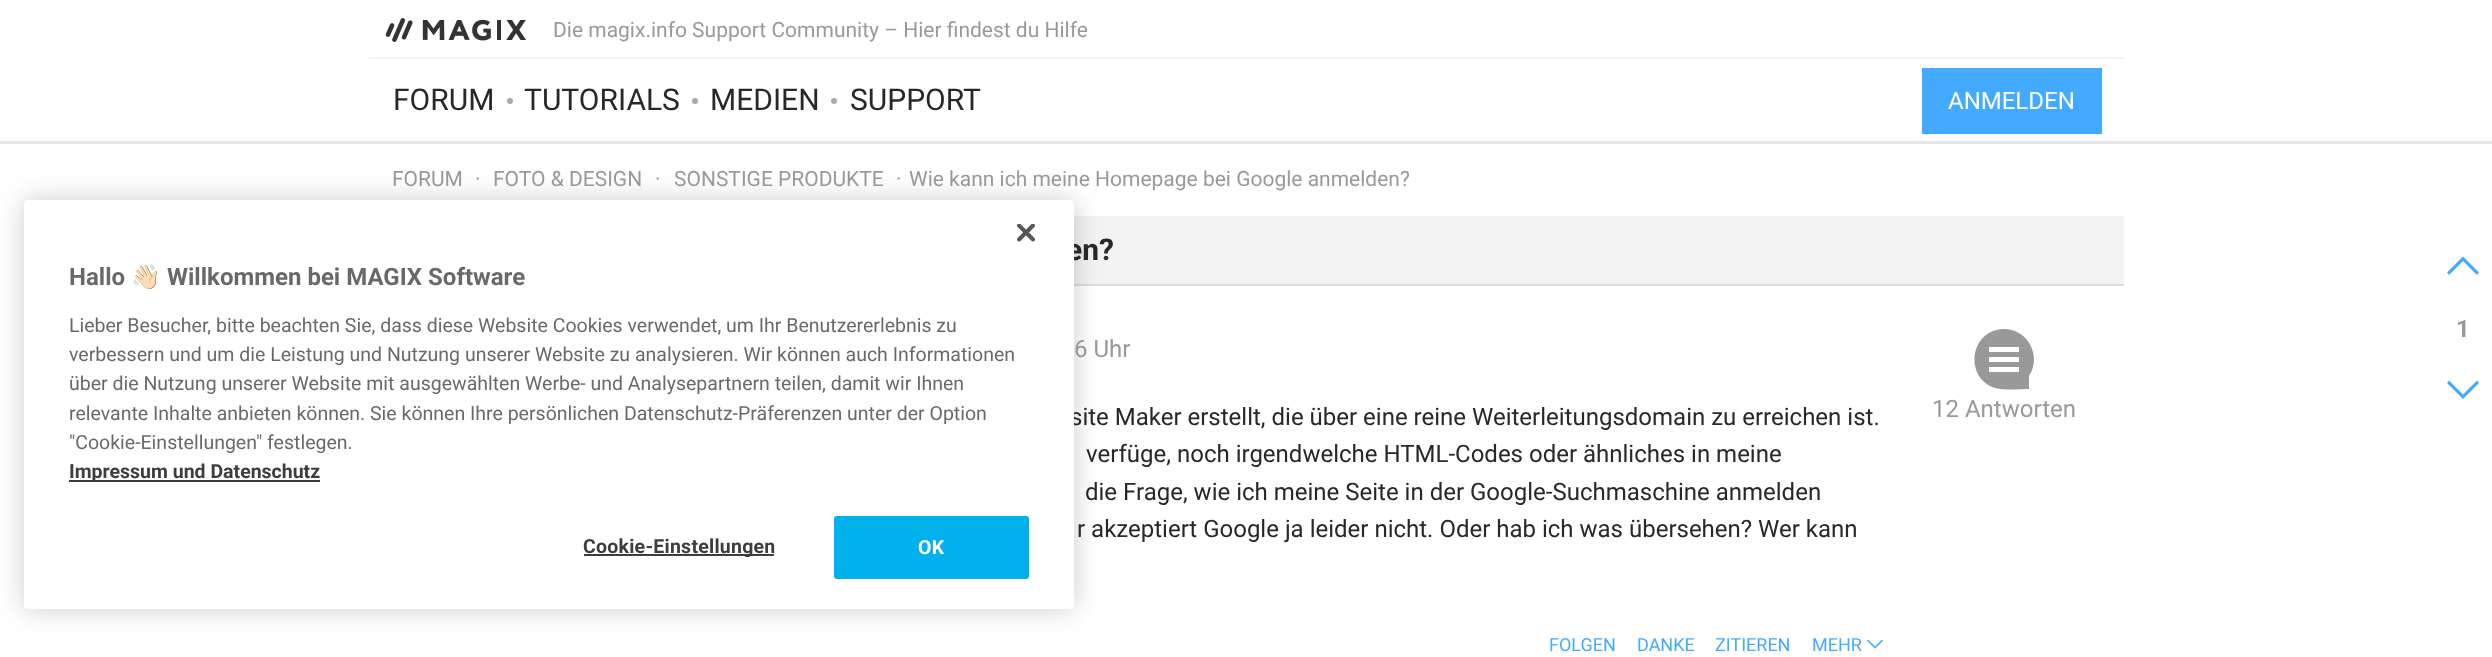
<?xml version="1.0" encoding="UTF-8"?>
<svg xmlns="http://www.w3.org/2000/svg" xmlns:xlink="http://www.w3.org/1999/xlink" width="2492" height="657">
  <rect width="100%" height="100%" fill="#ffffff" />
  <rect y="141" width="2492" height="3" fill="#e6e6e6" />
  <image x="385" y="18" width="141" height="24" xlink:href="image1.png" />
  <rect x="369" y="57" width="1755" height="2" fill="#f3f3f3" />
  <circle cx="510" cy="101" r="3" fill="#a9a9a9" />
  <circle cx="695" cy="101" r="3" fill="#a9a9a9" />
  <circle cx="834" cy="101" r="3" fill="#a9a9a9" />
  <rect x="1922" y="68" width="180" height="66" fill="#44aaff" />
  <rect x="1074" y="216" width="1050" height="68" fill="#f3f3f3" />
  <rect x="1074" y="284" width="1050" height="2" fill="#dddddd" />
  <image x="1867" y="639" width="16" height="10" xlink:href="image2.png" />
  <path d="M 2004 329 c -32 0 -41 45 -12 58 c 10 4 28 2 37 2 v -13 c 13 -20 -1 -47 -25 -47 z m 15 43 h -30 v -5 h 30 z m 0 -10 h -30 v -5 h 30 z m 0 -10 h -30 v -5 h 30 z" fill="#999999" />
  <path d="M 2447 272.5 l 2 2.5 l 14 -14 l 14 14 l 2 -2.5 l -16 -16 z" fill="#44aaff" />
  <path d="M 2479 383 l -2 -2.5 l -14 14 l -14 -14 l -2 2.5 l 16 16 z" fill="#44aaff" />
  <rect x="24" y="200" width="1050" height="409" rx="4" fill="#000000" fill-opacity="0.2" filter="blur(13.5px)" />
  <text x="553" y="37" style="font-family: Roboto; font-size: 21px; fill: #999999">Die magix.info Support Community – Hier findest du Hilfe</text>
  <text x="393" y="110" style="font-family: Roboto; font-size: 30px; fill: #282828">FORUM</text>
  <text x="524" y="110" style="font-family: Roboto; font-size: 30px; fill: #282828">TUTORIALS</text>
  <text x="710" y="110" style="font-family: Roboto; font-size: 30px; fill: #282828">MEDIEN</text>
  <text x="850" y="110" style="font-family: Roboto; font-size: 30px; fill: #282828">SUPPORT</text>
  <text x="1948" y="109" style="font-family: Roboto; font-size: 24px; fill: #ffffff">ANMELDEN</text>
  <text x="392" y="186" style="font-family: Roboto; font-size: 21px; fill: #999999">FORUM</text>
  <text x="475" y="186" style="font-family: Roboto; font-size: 21px; fill: #999999">·</text>
  <text x="493" y="186" style="font-family: Roboto; font-size: 21px; fill: #999999">FOTO &amp; DESIGN</text>
  <text x="655" y="186" style="font-family: Roboto; font-size: 21px; fill: #999999">·</text>
  <text x="674" y="186" style="font-family: Roboto; font-size: 21px; fill: #999999">SONSTIGE PRODUKTE</text>
  <text x="896" y="186" style="font-family: Roboto; font-size: 21px; fill: #999999">·</text>
  <text x="909" y="186" style="font-family: Roboto; font-size: 21px; fill: #999999">Wie kann ich meine Homepage bei Google anmelden?</text>
  <text x="1066" y="260" style="font-family: Roboto; font-size: 30px; font-weight: bold; fill: #282828">en?</text>
  <text x="1074" y="357" style="font-family: Roboto; font-size: 24px; fill: #999999">6 Uhr</text>
  <text x="1070" y="425" style="font-family: Roboto; font-size: 24px; fill: #282828">site Maker erstellt, die über eine reine Weiterleitungsdomain zu erreichen ist.</text>
  <text x="1086" y="462" style="font-family: Roboto; font-size: 24px; fill: #282828">verfüge, noch irgendwelche HTML-Codes oder ähnliches in meine</text>
  <text x="1085" y="500" style="font-family: Roboto; font-size: 24px; fill: #282828">die Frage, wie ich meine Seite in der Google-Suchmaschine anmelden</text>
  <text x="1077" y="537" style="font-family: Roboto; font-size: 24px; fill: #282828">r akzeptiert Google ja leider nicht. Oder hab ich was übersehen? Wer kann</text>
  <text x="1549" y="651" style="font-family: Roboto; font-size: 18px; fill: #44aaff">FOLGEN</text>
  <text x="1637" y="651" style="font-family: Roboto; font-size: 18px; fill: #44aaff">DANKE</text>
  <text x="1715" y="651" style="font-family: Roboto; font-size: 18px; fill: #44aaff">ZITIEREN</text>
  <text x="1812" y="651" style="font-family: Roboto; font-size: 18px; fill: #44aaff">MEHR</text>
  <text x="1932" y="417" style="font-family: Roboto; font-size: 24px; fill: #999999">12 Antworten</text>
  <text x="2456" y="337" style="font-family: Roboto; font-size: 24px; font-weight: bold; fill: #999999">1</text>
  <rect x="24" y="200" width="1050" height="409" rx="4" fill="#ffffff" />
  <image x="1017" y="224" width="18" height="18" xlink:href="image3.png" />
  <text x="69" y="285" style="font-family: Roboto; font-size: 24px; font-weight: bold; fill: #696969">Hallo</text>
  <text x="131" y="285" style="font-family: Noto Color Emoji; font-size: 24px; font-weight: bold; fill: #696969">👋🏻</text>
  <text x="167" y="285" style="font-family: Roboto; font-size: 24px; font-weight: bold; fill: #696969">Willkommen bei MAGIX Software</text>
  <text x="69" y="332" style="font-family: Roboto; font-size: 19.5px; fill: #696969">Lieber Besucher, bitte beachten Sie, dass diese Website Cookies verwendet, um Ihr Benutzererlebnis zu</text>
  <text x="69" y="361" style="font-family: Roboto; font-size: 19.5px; fill: #696969">verbessern und um die Leistung und Nutzung unserer Website zu analysieren. Wir können auch Informationen</text>
  <text x="69" y="390" style="font-family: Roboto; font-size: 19.5px; fill: #696969">über die Nutzung unserer Website mit ausgewählten Werbe- und Analysepartnern teilen, damit wir Ihnen</text>
  <text x="69" y="420" style="font-family: Roboto; font-size: 19.5px; fill: #696969">relevante Inhalte anbieten können. Sie können Ihre persönlichen Datenschutz-Präferenzen unter der Option</text>
  <text x="69" y="449" style="font-family: Roboto; font-size: 19.5px; fill: #696969">"Cookie-Einstellungen" festlegen.</text>
  <rect x="69" y="480" width="251" height="2" fill="#3d3d3d" />
  <text x="69" y="478" style="font-family: Roboto; font-size: 19.5px; font-weight: bold; fill: #3d3d3d">Impressum und Datenschutz</text>
  <rect x="584" y="554" width="190" height="2" fill="#3d3d3d" />
  <text x="583" y="553" style="font-family: Roboto; font-size: 19.5px; font-weight: bold; letter-spacing: 0.25px; fill: #3d3d3d">Cookie-Einstellungen</text>
  <rect x="835" y="517" width="193" height="61" rx="2" fill="#00b1ec" stroke="#00b1ec" stroke-width="2" />
  <text x="918" y="554" style="font-family: Roboto; font-size: 19.5px; font-weight: bold; letter-spacing: 0.25px; fill: #ffffff">OK</text>
</svg>
